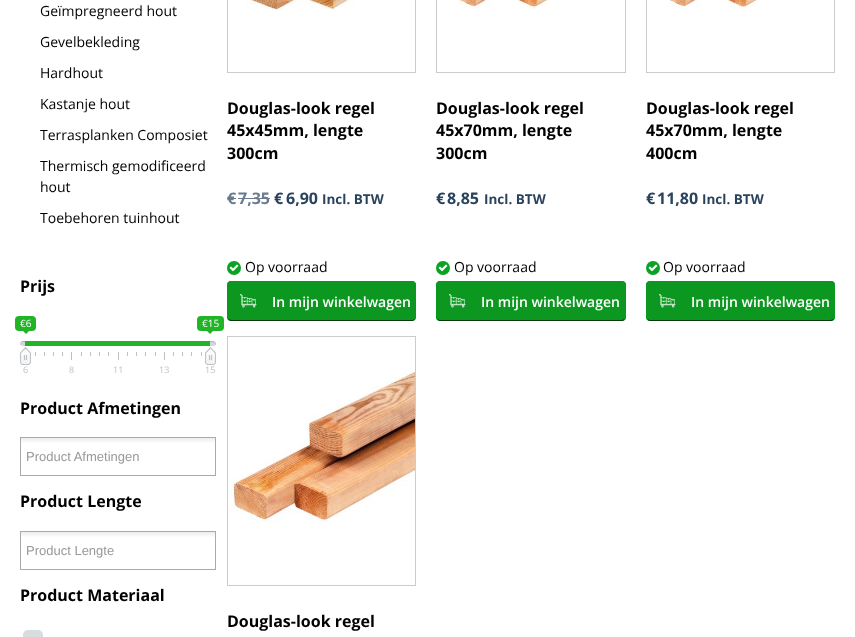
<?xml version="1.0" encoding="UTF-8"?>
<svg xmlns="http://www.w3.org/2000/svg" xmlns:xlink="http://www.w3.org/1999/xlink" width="855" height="637">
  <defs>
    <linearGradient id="g1" gradientUnits="userSpaceOnUse" x1="118" y1="438" x2="118" y2="475"><stop offset="0.01" stop-color="#eeeeee" /><stop offset="0.15" stop-color="#ffffff" /></linearGradient>
    <linearGradient id="g2" gradientUnits="userSpaceOnUse" x1="118" y1="532" x2="118" y2="569"><stop offset="0.01" stop-color="#eeeeee" /><stop offset="0.15" stop-color="#ffffff" /></linearGradient>
  </defs>
  <rect width="100%" height="100%" fill="#ffffff" />
  <rect x="15" y="316" width="21" height="15" rx="4" fill="#20b426" />
  <path d="M 23 331 h 6 l -3 3 z" fill="#20b426" />
  <rect x="197" y="316" width="27" height="15" rx="4" fill="#20b426" />
  <path d="M 207 331 h 6 l -3 3 z" fill="#20b426" />
  <image x="20" y="341" width="5" height="5" xlink:href="image1.png" />
  <image x="210" y="341" width="6" height="5" xlink:href="image2.png" />
  <rect x="25" y="341" width="185" height="5" fill="#20b426" />
  <image x="20" y="347" width="11" height="18" xlink:href="image3.png" />
  <image x="205" y="347" width="11" height="18" xlink:href="image3.png" />
  <rect x="35" y="352" width="1" height="4" fill="#c0c0c0" />
  <rect x="44" y="352" width="1" height="4" fill="#c0c0c0" />
  <rect x="53" y="352" width="1" height="4" fill="#c0c0c0" />
  <rect x="62" y="352" width="1" height="4" fill="#c0c0c0" />
  <rect x="71" y="352" width="1" height="8" fill="#c0c0c0" />
  <rect x="81" y="352" width="1" height="4" fill="#c0c0c0" />
  <rect x="90" y="352" width="1" height="4" fill="#c0c0c0" />
  <rect x="99" y="352" width="1" height="4" fill="#c0c0c0" />
  <rect x="108" y="352" width="1" height="4" fill="#c0c0c0" />
  <rect x="118" y="352" width="1" height="8" fill="#c0c0c0" />
  <rect x="127" y="352" width="1" height="4" fill="#c0c0c0" />
  <rect x="136" y="352" width="1" height="4" fill="#c0c0c0" />
  <rect x="145" y="352" width="1" height="4" fill="#c0c0c0" />
  <rect x="155" y="352" width="1" height="4" fill="#c0c0c0" />
  <rect x="164" y="352" width="1" height="8" fill="#c0c0c0" />
  <rect x="173" y="352" width="1" height="4" fill="#c0c0c0" />
  <rect x="182" y="352" width="1" height="4" fill="#c0c0c0" />
  <rect x="191" y="352" width="1" height="4" fill="#c0c0c0" />
  <rect x="201" y="352" width="1" height="4" fill="#c0c0c0" />
  <rect x="21" y="438" width="194" height="5" fill="url(#g1)" />
  <rect x="20.5" y="437.5" width="195" height="38" fill="none" stroke="#aaaaaa" />
  <rect x="21" y="532" width="194" height="5" fill="url(#g2)" />
  <rect x="20.5" y="531.5" width="195" height="38" fill="none" stroke="#aaaaaa" />
  <image x="23" y="630" width="20" height="7" xlink:href="image4.png" />
  <rect x="227.5" y="-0.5" width="188" height="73" fill="none" stroke="#cccccc" />
  <image x="246" y="0" width="109" height="11" xlink:href="image5.png" />
  <rect x="227" y="198" width="9" height="1" fill="#6a7b8e" />
  <rect x="238" y="198" width="32" height="1" fill="#6a7b8e" />
  <circle cx="234" cy="268" r="7" fill="#09a223" />
  <image x="229" y="264" width="10" height="8" xlink:href="image6.png" />
  <rect x="227" y="281" width="189" height="40" rx="4" fill="#0c9820" />
  <path d="M 414.5 319.5 l -2 1 h -151.5 h -30 l -2.5 -1" fill="none" stroke="#05390c" />
  <path d="M 228.5 319.5 c -0.5 -0.5 -1 -1.5 -1 -2.5 v -32 c 0 -1 0.5 -2 1 -2.5 c 0.5 -0.5 1.5 -1 2.5 -1 h 181 c 1 0 2 0.5 2.5 1 c 0.5 0.5 1 1.5 1 2.5 v 32 c 0 1 -0.5 2 -1 2.5" fill="none" stroke="#0c9820" />
  <image x="240" y="294" width="17" height="14" xlink:href="image7.png" />
  <rect x="436.5" y="-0.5" width="189" height="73" fill="none" stroke="#cccccc" />
  <image x="459" y="0" width="89" height="9" xlink:href="image8.png" />
  <circle cx="443" cy="268" r="7" fill="#09a223" />
  <image x="438" y="264" width="10" height="8" xlink:href="image6.png" />
  <rect x="436" y="281" width="190" height="40" rx="4" fill="#0c9820" />
  <path d="M 624.5 319.5 l -2.5 1 h -182.5 l -2 -1" fill="none" stroke="#05390c" />
  <path d="M 437.5 319.5 c -0.5 -0.5 -1 -1.5 -1 -2.5 v -32 c 0 -1 0.5 -2 1 -2.5 c 0.5 -0.5 1.5 -1 2.5 -1 h 182 c 1 0 2 0.5 2.5 1 c 0.5 0.5 1 1.5 1 2.5 v 32 c 0 1 -0.5 2 -1 2.5" fill="none" stroke="#0c9820" />
  <image x="449" y="294" width="17" height="14" xlink:href="image7.png" />
  <rect x="646.5" y="-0.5" width="188" height="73" fill="none" stroke="#cccccc" />
  <image x="669" y="0" width="88" height="9" xlink:href="image9.png" />
  <circle cx="653" cy="268" r="7" fill="#09a223" />
  <image x="648" y="264" width="10" height="8" xlink:href="image6.png" />
  <rect x="646" y="281" width="189" height="40" rx="4" fill="#0c9820" />
  <path d="M 833.5 319.5 l -2.5 1 h -181.5 l -2 -1" fill="none" stroke="#05390c" />
  <path d="M 647.5 319.5 c -0.5 -0.5 -1 -1.5 -1 -2.5 v -32 c 0 -1 0.5 -2 1 -2.5 c 0.5 -0.5 1.5 -1 2.5 -1 h 181 c 1 0 2 0.5 2.5 1 c 0.5 0.5 1 1.5 1 2.5 v 32 c 0 1 -0.5 2 -1 2.5" fill="none" stroke="#0c9820" />
  <image x="659" y="294" width="17" height="14" xlink:href="image7.png" />
  <rect x="227.5" y="336.5" width="188" height="249" fill="none" stroke="#cccccc" />
  <image x="228" y="371" width="187" height="151" xlink:href="image10.png" />
  <text x="40" y="16" style="font-family: Open Sans; font-size: 14px; fill: #000000">Geïmpregneerd hout</text>
  <text x="40" y="47" style="font-family: Open Sans; font-size: 14px; fill: #000000">Gevelbekleding</text>
  <text x="40" y="78" style="font-family: Open Sans; font-size: 14px; fill: #000000">Hardhout</text>
  <text x="40" y="109" style="font-family: Open Sans; font-size: 14px; fill: #000000">Kastanje hout</text>
  <text x="40" y="140" style="font-family: Open Sans; font-size: 14px; fill: #000000">Terrasplanken Composiet</text>
  <text x="40" y="171" style="font-family: Open Sans; font-size: 14px; fill: #000000">Thermisch gemodificeerd</text>
  <text x="40" y="192" style="font-family: Open Sans; font-size: 14px; fill: #000000">hout</text>
  <text x="40" y="223" style="font-family: Open Sans; font-size: 14px; fill: #000000">Toebehoren tuinhout</text>
  <text x="20" y="292" style="font-family: Open Sans; font-size: 16px; font-weight: bold; fill: #000000">Prijs</text>
  <text x="20" y="327" style="font-family: Open Sans; font-size: 10px; fill: #ffffff">€6</text>
  <text x="202" y="327" style="font-family: Open Sans; font-size: 10px; fill: #ffffff">€15</text>
  <text x="23" y="373" style="font-family: Open Sans; font-size: 9px; fill: #c0c0c0">6</text>
  <text x="69" y="373" style="font-family: Open Sans; font-size: 9px; fill: #c0c0c0">8</text>
  <text x="113" y="373" style="font-family: Open Sans; font-size: 9px; fill: #c0c0c0">11</text>
  <text x="159" y="373" style="font-family: Open Sans; font-size: 9px; fill: #c0c0c0">13</text>
  <text x="205" y="373" style="font-family: Open Sans; font-size: 9px; fill: #c0c0c0">15</text>
  <text x="20" y="414" style="font-family: Open Sans; font-size: 16px; font-weight: bold; fill: #000000">Product Afmetingen</text>
  <text x="26" y="461" style="font-family: Liberation Sans; font-size: 13px; fill: #999999">Product Afmetingen</text>
  <text x="20" y="507" style="font-family: Open Sans; font-size: 16px; font-weight: bold; fill: #000000">Product Lengte</text>
  <text x="26" y="555" style="font-family: Liberation Sans; font-size: 13px; fill: #999999">Product Lengte</text>
  <text x="20" y="601" style="font-family: Open Sans; font-size: 16px; font-weight: bold; fill: #000000">Product Materiaal</text>
  <text x="227" y="114" style="font-family: Open Sans; font-size: 16px; font-weight: bold; fill: #000000">Douglas-look regel</text>
  <text x="227" y="136" style="font-family: Open Sans; font-size: 16px; font-weight: bold; fill: #000000">45x45mm, lengte</text>
  <text x="227" y="159" style="font-family: Open Sans; font-size: 16px; font-weight: bold; fill: #000000">300cm</text>
  <text x="227" y="204" style="font-family: Open Sans; font-size: 16px; font-weight: bold; fill: #6a7b8e">€</text>
  <text x="238" y="204" style="font-family: Open Sans; font-size: 16px; font-weight: bold; fill: #6a7b8e">7,35</text>
  <text x="274" y="204" style="font-family: Open Sans; font-size: 16px; font-weight: bold; fill: #2a435d">€</text>
  <text x="286" y="204" style="font-family: Open Sans; font-size: 16px; font-weight: bold; fill: #2a435d">6,90</text>
  <text x="322" y="204" style="font-family: Open Sans; font-size: 13.5px; font-weight: bold; fill: #2a435d">Incl. BTW</text>
  <text x="245" y="272" style="font-family: Open Sans; font-size: 14px; fill: #000000">Op voorraad</text>
  <text x="272" y="307" style="font-family: Open Sans; font-size: 14px; font-weight: 600; fill: #ffffff">In mijn winkelwagen</text>
  <text x="436" y="114" style="font-family: Open Sans; font-size: 16px; font-weight: bold; fill: #000000">Douglas-look regel</text>
  <text x="436" y="136" style="font-family: Open Sans; font-size: 16px; font-weight: bold; fill: #000000">45x70mm, lengte</text>
  <text x="436" y="159" style="font-family: Open Sans; font-size: 16px; font-weight: bold; fill: #000000">300cm</text>
  <text x="436" y="204" style="font-family: Open Sans; font-size: 16px; font-weight: bold; fill: #2a435d">€</text>
  <text x="447" y="204" style="font-family: Open Sans; font-size: 16px; font-weight: bold; fill: #2a435d">8,85</text>
  <text x="484" y="204" style="font-family: Open Sans; font-size: 13.5px; font-weight: bold; fill: #2a435d">Incl. BTW</text>
  <text x="454" y="272" style="font-family: Open Sans; font-size: 14px; fill: #000000">Op voorraad</text>
  <text x="481" y="307" style="font-family: Open Sans; font-size: 14px; font-weight: 600; fill: #ffffff">In mijn winkelwagen</text>
  <text x="646" y="114" style="font-family: Open Sans; font-size: 16px; font-weight: bold; fill: #000000">Douglas-look regel</text>
  <text x="646" y="136" style="font-family: Open Sans; font-size: 16px; font-weight: bold; fill: #000000">45x70mm, lengte</text>
  <text x="646" y="159" style="font-family: Open Sans; font-size: 16px; font-weight: bold; fill: #000000">400cm</text>
  <text x="646" y="204" style="font-family: Open Sans; font-size: 16px; font-weight: bold; fill: #2a435d">€</text>
  <text x="657" y="204" style="font-family: Open Sans; font-size: 16px; font-weight: bold; fill: #2a435d">11,80</text>
  <text x="702" y="204" style="font-family: Open Sans; font-size: 13.5px; font-weight: bold; fill: #2a435d">Incl. BTW</text>
  <text x="663" y="272" style="font-family: Open Sans; font-size: 14px; fill: #000000">Op voorraad</text>
  <text x="691" y="307" style="font-family: Open Sans; font-size: 14px; font-weight: 600; fill: #ffffff">In mijn winkelwagen</text>
  <text x="227" y="627" style="font-family: Open Sans; font-size: 16px; font-weight: bold; fill: #000000">Douglas-look regel</text>
</svg>
